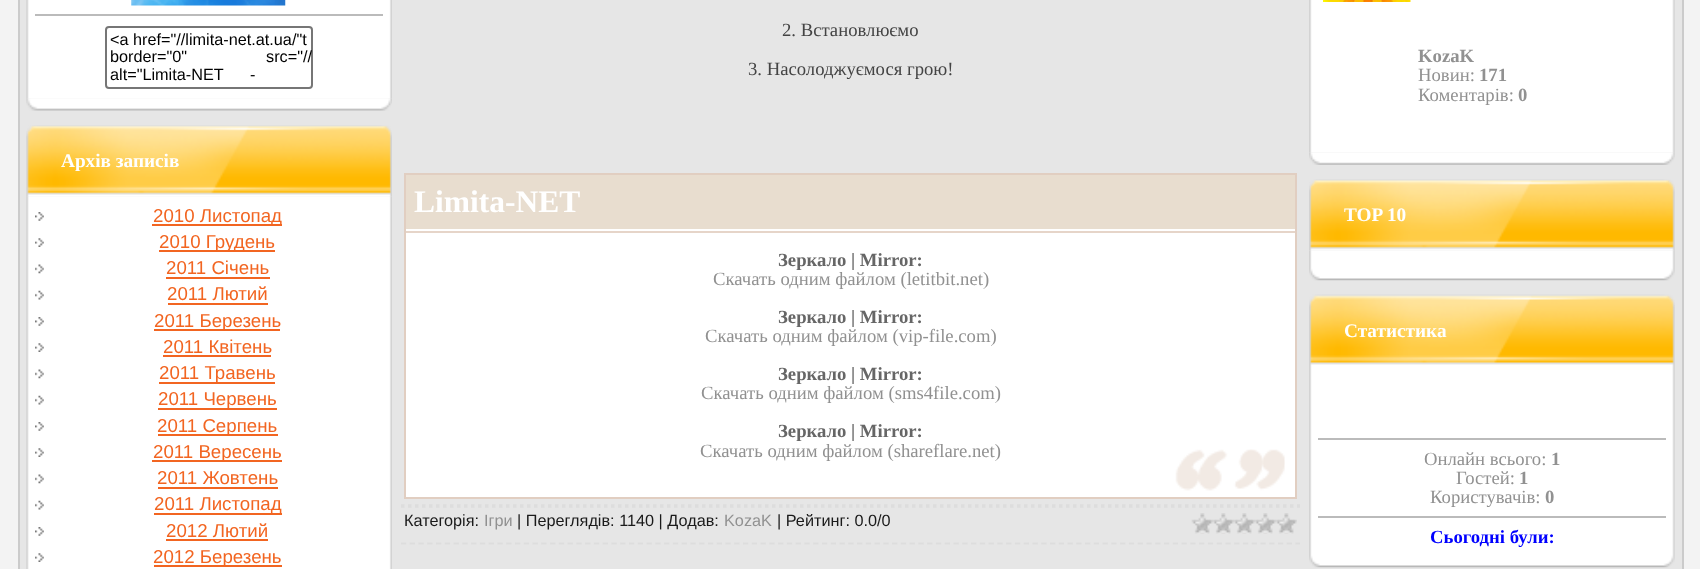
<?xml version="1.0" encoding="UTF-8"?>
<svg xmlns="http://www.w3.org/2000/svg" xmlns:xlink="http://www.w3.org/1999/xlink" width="1700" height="569">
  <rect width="100%" height="100%" fill="#f3f3f3" />
  <rect x="20" width="1662" height="569" fill="#e6e6e6" />
  <rect x="1682" width="2" height="569" fill="#cbcbcb" />
  <rect x="18" width="2" height="569" fill="#cbcbcb" />
  <image x="26" y="0" width="366" height="99" xlink:href="image1.png" />
  <image x="131" y="0" width="155" height="6" xlink:href="image2.png" />
  <rect x="35" y="14" width="348" height="2" fill="#bbbbbb" />
  <rect x="106" y="27" width="206" height="61" rx="3" fill="none" stroke="#767676" stroke-width="2" />
  <image x="26" y="98" width="366" height="13" xlink:href="image3.png" />
  <image x="26" y="125" width="366" height="72" xlink:href="image4.png" />
  <image x="26" y="196" width="366" height="373" xlink:href="image5.png" />
  <image x="35" y="212" width="9" height="9" xlink:href="image6.png" />
  <rect x="152" y="224" width="130" height="2" fill="#f26521" />
  <image x="35" y="238" width="9" height="9" xlink:href="image7.png" />
  <rect x="159" y="250" width="116" height="2" fill="#f26521" />
  <image x="35" y="264" width="9" height="10" xlink:href="image8.png" />
  <rect x="166" y="277" width="104" height="2" fill="#f26521" />
  <image x="35" y="290" width="9" height="10" xlink:href="image9.png" />
  <rect x="168" y="303" width="100" height="2" fill="#f26521" />
  <image x="35" y="317" width="9" height="9" xlink:href="image6.png" />
  <rect x="154" y="329" width="126" height="2" fill="#f26521" />
  <image x="35" y="343" width="9" height="9" xlink:href="image7.png" />
  <rect x="163" y="355" width="108" height="2" fill="#f26521" />
  <image x="35" y="369" width="9" height="10" xlink:href="image8.png" />
  <rect x="159" y="382" width="116" height="2" fill="#f26521" />
  <image x="35" y="395" width="9" height="10" xlink:href="image9.png" />
  <rect x="158" y="408" width="119" height="2" fill="#f26521" />
  <image x="35" y="422" width="9" height="9" xlink:href="image6.png" />
  <rect x="158" y="434" width="120" height="2" fill="#f26521" />
  <image x="35" y="448" width="9" height="9" xlink:href="image7.png" />
  <rect x="152" y="460" width="130" height="2" fill="#f26521" />
  <image x="35" y="474" width="9" height="10" xlink:href="image8.png" />
  <rect x="158" y="487" width="120" height="2" fill="#f26521" />
  <image x="35" y="500" width="9" height="10" xlink:href="image9.png" />
  <rect x="154" y="513" width="128" height="2" fill="#f26521" />
  <image x="35" y="527" width="9" height="9" xlink:href="image6.png" />
  <rect x="166" y="539" width="102" height="2" fill="#f26521" />
  <image x="35" y="553" width="9" height="9" xlink:href="image7.png" />
  <rect x="154" y="565" width="128" height="2" fill="#f26521" />
  <rect x="405" y="174" width="891" height="324" fill="none" stroke="#e1cec1" stroke-width="2" />
  <rect x="406" y="175" width="889" height="54" fill="#e8ddcf" />
  <rect x="406" y="229" width="889" height="2" fill="#ffffff" />
  <rect x="406" y="233" width="889" height="264" fill="#ffffff" />
  <image x="1175" y="449" width="110" height="42" xlink:href="image10.png" />
  <rect x="406" y="231" width="889" height="2" fill="#e6d5c9" />
  <path d="M 401 506 h 899" fill="none" stroke="#dddddd" stroke-width="3.5" stroke-dasharray="3.5 3.5" />
  <path d="M 401 543.5 h 899" fill="none" stroke="#dddddd" stroke-width="1.8" stroke-dasharray="5.25 3.52" />
  <image x="1191" y="513" width="106" height="21" xlink:href="image11.png" />
  <image x="1309" y="0" width="366" height="153" xlink:href="image12.png" />
  <image x="1323" y="0" width="88" height="2" xlink:href="image13.png" />
  <image x="1309" y="152" width="366" height="13" xlink:href="image14.png" />
  <image x="1309" y="179" width="366" height="72" xlink:href="image15.png" />
  <image x="1309" y="250" width="366" height="18" xlink:href="image16.png" />
  <image x="1309" y="268" width="366" height="13" xlink:href="image17.png" />
  <image x="1309" y="294" width="366" height="72" xlink:href="image18.png" />
  <image x="1309" y="366" width="366" height="189" xlink:href="image19.png" />
  <rect x="1318" y="438" width="348" height="2" fill="#bbbbbb" />
  <rect x="1318" y="516" width="348" height="2" fill="#bbbbbb" />
  <image x="1309" y="555" width="366" height="13" xlink:href="image17.png" />
  <text x="110" y="45" style="font-family: Liberation Sans; font-size: 16.25px; fill: #000000">&lt;a href="//limita-net.at.ua/"t</text>
  <text x="110" y="62" style="font-family: Liberation Sans; font-size: 16.25px; fill: #000000">border="0"</text>
  <text x="266" y="62" style="font-family: Liberation Sans; font-size: 16.25px; fill: #000000">src="//</text>
  <text x="110" y="80" word-spacing="22" style="font-family: Liberation Sans; font-size: 16.25px; fill: #000000">alt="Limita-NET -</text>
  <text x="61" y="167" style="font-family: Liberation Serif; font-size: 19.25px; font-weight: bold; fill: #ffffff">Архів записів</text>
  <text x="153" y="222" style="font-family: Liberation Sans; font-size: 18.7px; fill: #f26521">2010 Листопад</text>
  <text x="159" y="248" style="font-family: Liberation Sans; font-size: 18.7px; fill: #f26521">2010 Грудень</text>
  <text x="166" y="274" style="font-family: Liberation Sans; font-size: 18.7px; fill: #f26521">2011 Січень</text>
  <text x="167" y="300" style="font-family: Liberation Sans; font-size: 18.7px; fill: #f26521">2011 Лютий</text>
  <text x="154" y="327" style="font-family: Liberation Sans; font-size: 18.7px; fill: #f26521">2011 Березень</text>
  <text x="163" y="353" style="font-family: Liberation Sans; font-size: 18.7px; fill: #f26521">2011 Квітень</text>
  <text x="159" y="379" style="font-family: Liberation Sans; font-size: 18.7px; fill: #f26521">2011 Травень</text>
  <text x="158" y="405" style="font-family: Liberation Sans; font-size: 18.7px; fill: #f26521">2011 Червень</text>
  <text x="157" y="432" style="font-family: Liberation Sans; font-size: 18.7px; fill: #f26521">2011 Серпень</text>
  <text x="153" y="458" style="font-family: Liberation Sans; font-size: 18.7px; fill: #f26521">2011 Вересень</text>
  <text x="157" y="484" style="font-family: Liberation Sans; font-size: 18.7px; fill: #f26521">2011 Жовтень</text>
  <text x="154" y="510" style="font-family: Liberation Sans; font-size: 18.7px; fill: #f26521">2011 Листопад</text>
  <text x="166" y="537" style="font-family: Liberation Sans; font-size: 18.7px; fill: #f26521">2012 Лютий</text>
  <text x="153" y="563" style="font-family: Liberation Sans; font-size: 18.7px; fill: #f26521">2012 Березень</text>
  <text x="782" y="36" style="font-family: Liberation Serif; font-size: 18.7px; fill: #444444">2. Встановлюємо</text>
  <text x="748" y="75" style="font-family: Liberation Serif; font-size: 18.7px; fill: #444444">3. Насолоджуємося грою!</text>
  <text x="414" y="212" style="font-family: Liberation Serif; font-size: 31.5px; font-weight: bold; fill: #ffffff">Limita-NET</text>
  <text x="778" y="266" style="font-family: Liberation Serif; font-size: 18.7px; font-weight: bold; fill: #666666">Зеркало | Mirror:</text>
  <text x="713" y="285" style="font-family: Liberation Serif; font-size: 18.7px; fill: #919191">Скачать одним файлом (letitbit.net)</text>
  <text x="778" y="323" style="font-family: Liberation Serif; font-size: 18.7px; font-weight: bold; fill: #666666">Зеркало | Mirror:</text>
  <text x="705" y="342" style="font-family: Liberation Serif; font-size: 18.7px; fill: #919191">Скачать одним файлом (vip-file.com)</text>
  <text x="778" y="380" style="font-family: Liberation Serif; font-size: 18.7px; font-weight: bold; fill: #666666">Зеркало | Mirror:</text>
  <text x="701" y="399" style="font-family: Liberation Serif; font-size: 18.7px; fill: #919191">Скачать одним файлом (sms4file.com)</text>
  <text x="778" y="437" style="font-family: Liberation Serif; font-size: 18.7px; font-weight: bold; fill: #666666">Зеркало | Mirror:</text>
  <text x="700" y="457" style="font-family: Liberation Serif; font-size: 18.7px; fill: #919191">Скачать одним файлом (shareflare.net)</text>
  <text x="404" y="526" style="font-family: Liberation Sans; font-size: 16.25px; fill: #1a1a1a">Категорія:</text>
  <text x="484" y="526" style="font-family: Liberation Sans; font-size: 16.25px; fill: #919191">Ігри</text>
  <text x="517" y="526" style="font-family: Liberation Sans; font-size: 16.25px; fill: #1a1a1a">| Переглядів: 1140 | Додав:</text>
  <text x="724" y="526" style="font-family: Liberation Sans; font-size: 16.25px; fill: #919191">KozaK</text>
  <text x="777" y="526" style="font-family: Liberation Sans; font-size: 16.25px; fill: #1a1a1a">| Рейтинг: 0.0/0</text>
  <text x="1418" y="62" style="font-family: Liberation Serif; font-size: 18.7px; font-weight: bold; fill: #919191">KozaK</text>
  <text x="1418" y="81" style="font-family: Liberation Serif; font-size: 18.7px; fill: #919191">Новин:</text>
  <text x="1479" y="81" style="font-family: Liberation Serif; font-size: 18.7px; font-weight: bold; fill: #919191">171</text>
  <text x="1418" y="101" style="font-family: Liberation Serif; font-size: 18.7px; fill: #919191">Коментарів:</text>
  <text x="1518" y="101" style="font-family: Liberation Serif; font-size: 18.7px; font-weight: bold; fill: #919191">0</text>
  <text x="1344" y="221" style="font-family: Liberation Serif; font-size: 19.25px; font-weight: bold; fill: #ffffff">TOP 10</text>
  <text x="1344" y="337" style="font-family: Liberation Serif; font-size: 19.25px; font-weight: bold; fill: #ffffff">Статистика</text>
  <text x="1424" y="465" style="font-family: Liberation Serif; font-size: 18.7px; fill: #919191">Онлайн всього:</text>
  <text x="1551" y="465" style="font-family: Liberation Serif; font-size: 18.7px; font-weight: bold; fill: #919191">1</text>
  <text x="1456" y="484" style="font-family: Liberation Serif; font-size: 18.7px; fill: #919191">Гостей:</text>
  <text x="1519" y="484" style="font-family: Liberation Serif; font-size: 18.7px; font-weight: bold; fill: #919191">1</text>
  <text x="1430" y="503" style="font-family: Liberation Serif; font-size: 18.7px; fill: #919191">Користувачів:</text>
  <text x="1545" y="503" style="font-family: Liberation Serif; font-size: 18.7px; font-weight: bold; fill: #919191">0</text>
  <text x="1430" y="543" style="font-family: Liberation Serif; font-size: 18.7px; font-weight: bold; fill: #0000ff">Сьогодні були:</text>
</svg>
